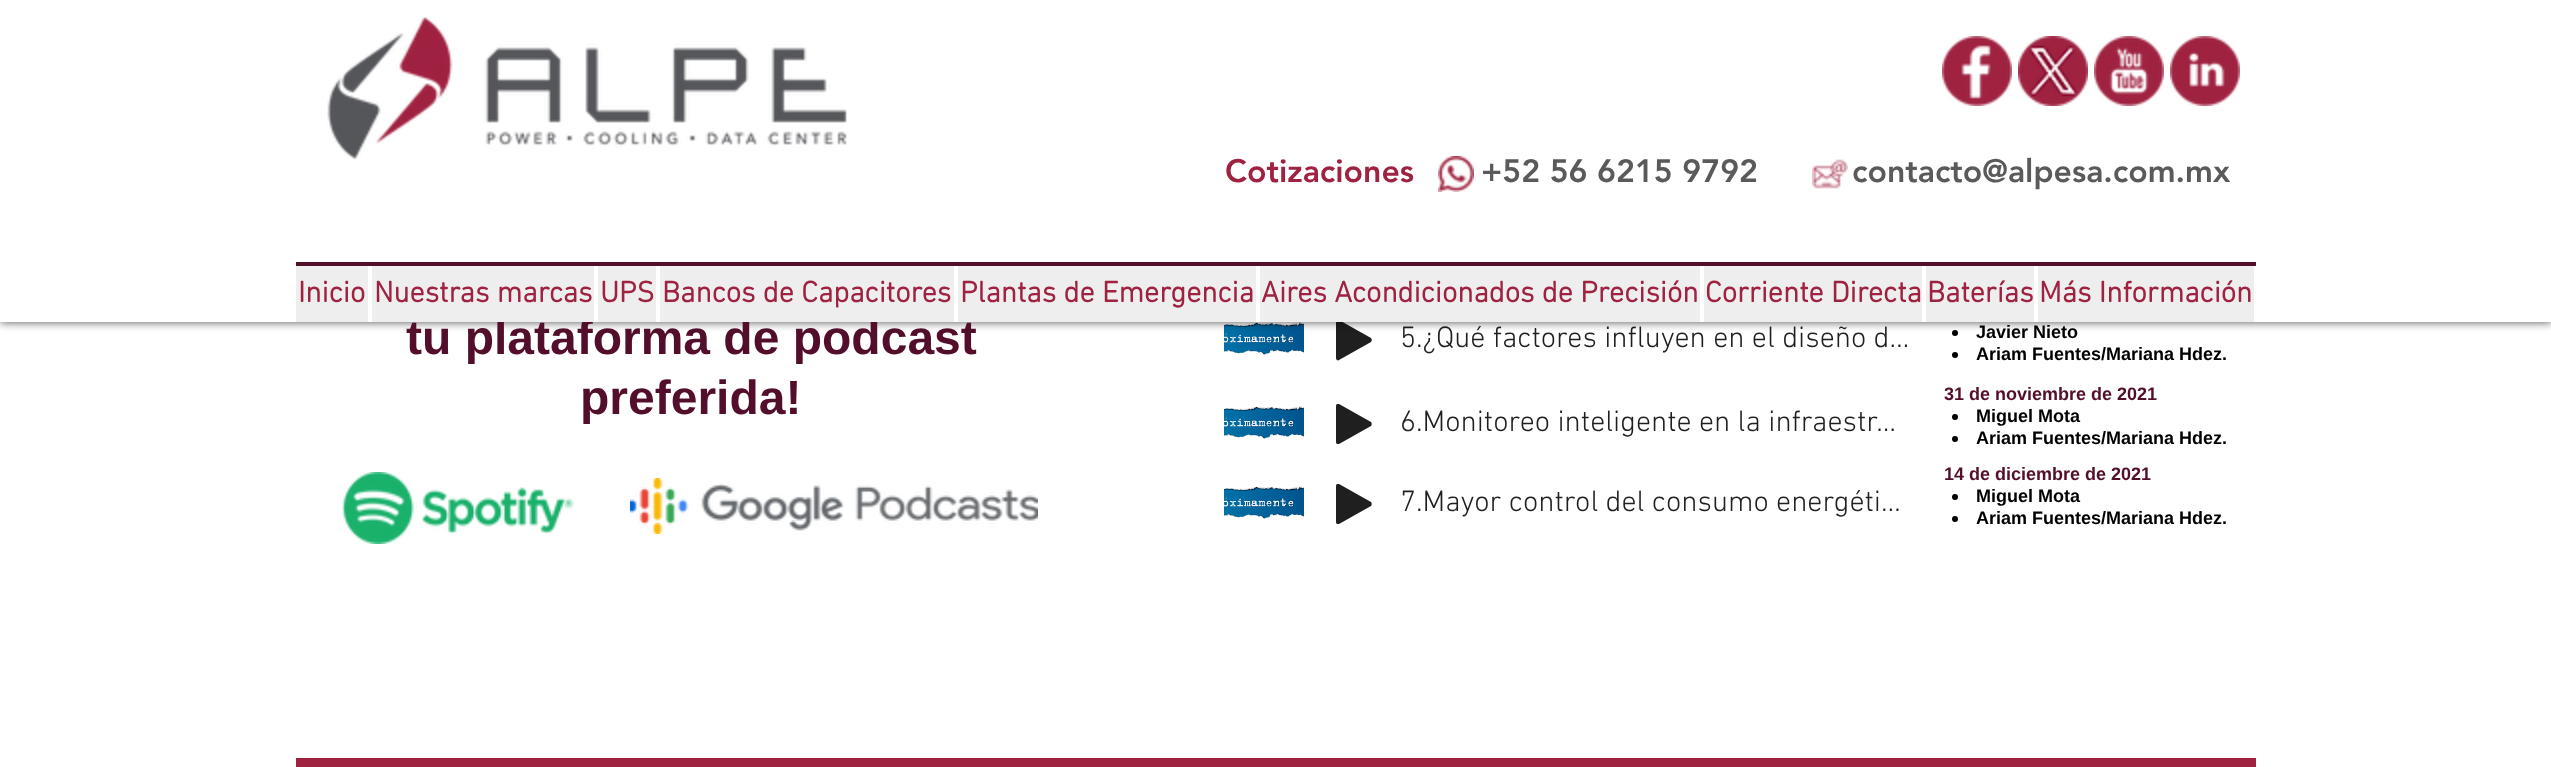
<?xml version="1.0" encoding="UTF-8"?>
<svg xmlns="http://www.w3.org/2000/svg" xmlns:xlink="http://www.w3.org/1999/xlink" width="2551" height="767">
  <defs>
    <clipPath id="clip1"><rect x="1336" y="404" width="36" height="40" /></clipPath>
    <clipPath id="clip2"><rect x="1336" y="484" width="36" height="40" /></clipPath>
  </defs>
  <rect width="100%" height="100%" fill="#ffffff" />
  <image x="1224" y="322" width="80" height="33" xlink:href="image8.png" />
  <path d="M 1371 338 c 1 1 1 3 0 4 l -32 18 c -1 1 -3 0 -3 -2 v -36 c 0 -2 2 -3 3 -2 z" fill="#1f1f1f" />
  <circle cx="1955" cy="333" r="3" fill="#000000" />
  <rect width="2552" height="322" fill="#000000" fill-opacity="0.7" filter="blur(5px)" />
  <circle cx="1955" cy="355" r="3" fill="#000000" />
  <image x="1224" y="406" width="80" height="33" xlink:href="image9.png" />
  <g clip-path="url(#clip1)">
    <path d="M 1371 422 c 1 1 1 3 0 4 l -32 18 c -1 1 -3 0 -3 -2 v -36 c 0 -2 2 -3 3 -2 z" fill="#1f1f1f" />
  </g>
  <circle cx="1955" cy="417" r="3" fill="#000000" />
  <circle cx="1955" cy="439" r="3" fill="#000000" />
  <image x="342" y="472" width="232" height="72" xlink:href="image10.png" />
  <image x="630" y="478" width="408" height="56" xlink:href="image11.png" />
  <image x="1224" y="486" width="80" height="33" xlink:href="image12.png" />
  <g clip-path="url(#clip2)">
    <path d="M 1371 502 c 1 1 1 3 0 4 l -32 18 c -1 1 -3 0 -3 -2 v -36 c 0 -2 2 -3 3 -2 z" fill="#1f1f1f" />
  </g>
  <circle cx="1955" cy="497" r="3" fill="#000000" />
  <circle cx="1955" cy="519" r="3" fill="#000000" />
  <rect x="296" y="758" width="1960" height="9" fill="#9f2241" />
  <text x="406" y="354" style="font-family: Liberation Sans; font-size: 48px; font-weight: bold; fill: #530e2c">tu plataforma de podcast</text>
  <rect width="2551" height="322" fill="#ffffff" />
  <rect x="296" y="262" width="1960" height="4" fill="#530e2c" />
  <rect x="2038" y="266" width="216" height="56" fill="#eeeeee" />
  <text x="2039" y="302" style="font-family: 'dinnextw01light'; font-size: 30px; font-weight: bold; fill: #9f2241">Más Información</text>
  <rect x="1926" y="266" width="108" height="56" fill="#eeeeee" />
  <text x="1927" y="302" style="font-family: 'dinnextw01light'; font-size: 30px; font-weight: bold; fill: #9f2241">Baterías</text>
  <rect x="1704" y="266" width="218" height="56" fill="#eeeeee" />
  <text x="1705" y="302" style="font-family: 'dinnextw01light'; font-size: 30px; font-weight: bold; fill: #9f2241">Corriente Directa</text>
  <rect x="1260" y="266" width="440" height="56" fill="#eeeeee" />
  <text x="1261" y="302" style="font-family: 'dinnextw01light'; font-size: 30px; font-weight: bold; fill: #9f2241">Aires Acondicionados de Precisión</text>
  <rect x="958" y="266" width="298" height="56" fill="#eeeeee" />
  <text x="960" y="302" style="font-family: 'dinnextw01light'; font-size: 30px; font-weight: bold; fill: #9f2241">Plantas de Emergencia</text>
  <rect x="660" y="266" width="294" height="56" fill="#eeeeee" />
  <text x="662" y="302" style="font-family: 'dinnextw01light'; font-size: 30px; font-weight: bold; fill: #9f2241">Bancos de Capacitores</text>
  <rect x="598" y="266" width="58" height="56" fill="#eeeeee" />
  <text x="600" y="302" style="font-family: 'dinnextw01light'; font-size: 30px; font-weight: bold; fill: #9f2241">UPS</text>
  <rect x="372" y="266" width="222" height="56" fill="#eeeeee" />
  <text x="374" y="302" style="font-family: 'dinnextw01light'; font-size: 30px; font-weight: bold; fill: #9f2241">Nuestras marcas</text>
  <rect x="296" y="266" width="72" height="56" fill="#eeeeee" />
  <text x="298" y="302" style="font-family: 'dinnextw01light'; font-size: 30px; font-weight: bold; fill: #9f2241">Inicio</text>
  <image x="1812" y="159" width="36" height="30" xlink:href="image7.png" />
  <image x="1438" y="156" width="36" height="36" xlink:href="image6.png" />
  <text x="1852" y="182" style="font-family: 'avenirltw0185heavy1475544'; font-size: 32px; font-weight: 900; fill: #5a5a5a">contacto@alpesa.com.mx</text>
  <text x="1481" y="182" style="font-family: 'avenirltw0185heavy1475544'; font-size: 32px; font-weight: 900; fill: #5a5a5a">+52 56 6215 9792</text>
  <text x="1225" y="182" style="font-family: 'avenirltw0185heavy1475544'; font-size: 32px; font-weight: 900; fill: #9f2241">Cotizaciones</text>
  <image x="2170" y="36" width="70" height="70" xlink:href="image5.png" />
  <image x="2094" y="36" width="70" height="70" xlink:href="image4.png" />
  <image x="2018" y="36" width="70" height="70" xlink:href="image3.png" />
  <image x="1942" y="36" width="70" height="70" xlink:href="image2.png" />
  <image x="327" y="17" width="520" height="143" xlink:href="image1.png" />
  <text x="580" y="414" style="font-family: Liberation Sans; font-size: 48px; font-weight: bold; fill: #530e2c">preferida!</text>
  <text x="1400" y="347" style="font-family: 'dinnextw01light'; font-size: 30px; font-weight: 300; fill: #1f1f1f">5.¿Qué factores influyen en el diseño d…</text>
  <text x="1976" y="338" style="font-family: Liberation Sans; font-size: 18px; font-weight: bold; fill: #000000">Javier Nieto</text>
  <text x="1976" y="360" style="font-family: Liberation Sans; font-size: 18px; font-weight: bold; fill: #000000">Ariam Fuentes/Mariana Hdez.</text>
  <text x="1400" y="431" style="font-family: 'dinnextw01light'; font-size: 30px; font-weight: 300; fill: #1f1f1f">6.Monitoreo inteligente en la infraestr…</text>
  <text x="1944" y="400" style="font-family: Liberation Sans; font-size: 18px; font-weight: bold; fill: #530e2c">31 de noviembre de 2021</text>
  <text x="1976" y="422" style="font-family: Liberation Sans; font-size: 18px; font-weight: bold; fill: #000000">Miguel Mota</text>
  <text x="1976" y="444" style="font-family: Liberation Sans; font-size: 18px; font-weight: bold; fill: #000000">Ariam Fuentes/Mariana Hdez.</text>
  <text x="1400" y="511" style="font-family: 'dinnextw01light'; font-size: 30px; font-weight: 300; fill: #1f1f1f">7.Mayor control del consumo energéti…</text>
  <text x="1944" y="480" style="font-family: Liberation Sans; font-size: 18px; font-weight: bold; fill: #530e2c">14 de diciembre de 2021</text>
  <text x="1976" y="502" style="font-family: Liberation Sans; font-size: 18px; font-weight: bold; fill: #000000">Miguel Mota</text>
  <text x="1976" y="524" style="font-family: Liberation Sans; font-size: 18px; font-weight: bold; fill: #000000">Ariam Fuentes/Mariana Hdez.</text>
</svg>
